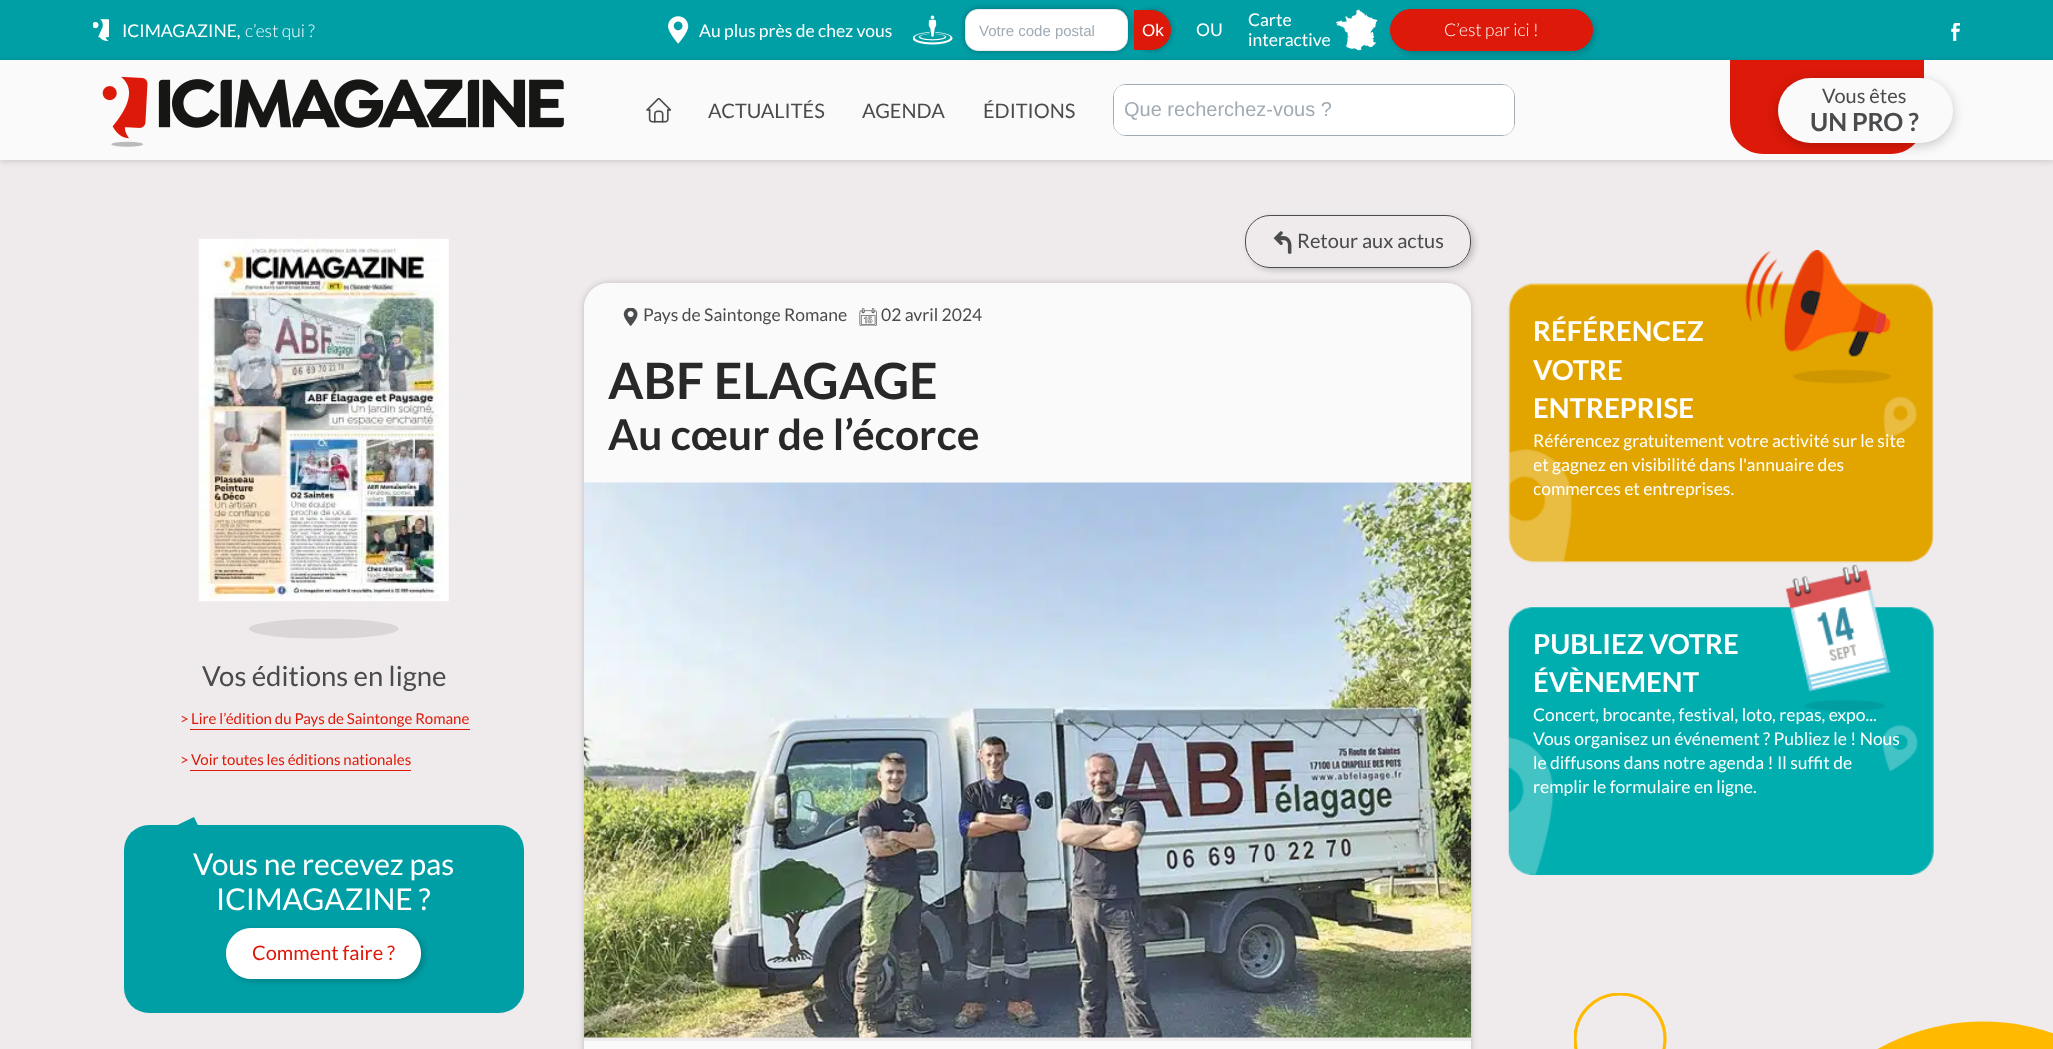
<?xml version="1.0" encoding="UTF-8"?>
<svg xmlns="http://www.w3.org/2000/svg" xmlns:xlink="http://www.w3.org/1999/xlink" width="2053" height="1049">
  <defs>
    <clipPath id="clip1"><path d="M 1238 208 h 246 v 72 h -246 z m 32 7 h 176 c 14 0 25 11 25 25 v 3 c 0 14 -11 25 -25 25 h -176 c -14 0 -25 -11 -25 -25 v -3 c 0 -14 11 -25 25 -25 z" clip-rule="evenodd" /></clipPath>
    <clipPath id="clip2"><path d="M 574 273 h 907 v 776 h -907 z m 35 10 h 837 c 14 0 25 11 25 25 v 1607 c 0 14 -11 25 -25 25 h -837 c -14 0 -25 -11 -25 -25 v -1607 c 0 -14 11 -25 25 -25 z" clip-rule="evenodd" /></clipPath>
    <clipPath id="clip3"><rect x="1574" y="993" width="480" height="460" /></clipPath>
    <clipPath id="clip4"><rect x="1534" y="313" width="375" height="225" /></clipPath>
  </defs>
  <rect width="100%" height="100%" fill="#efeaeb" />
  <rect width="2053" height="60" fill="#009fa6" />
  <image x="93" y="19" width="16" height="22" xlink:href="image1.png" />
  <image x="668" y="16" width="21" height="28" xlink:href="image2.png" />
  <image x="913" y="15" width="40" height="30" xlink:href="image3.png" />
  <rect x="1134" y="10" width="37" height="40" rx="20" fill="#000000" fill-opacity="0.3" filter="blur(3px)" />
  <path d="M 1134.5 10.5 h 16.5 c 11 0 19.5 8.5 19.5 19.5 c 0 11 -8.5 19.5 -19.5 19.5 h -16.5 z" fill="#dd1909" stroke="#dd1909" />
  <rect y="61" width="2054" height="100" fill="#000000" fill-opacity="0.16" filter="blur(3px)" />
  <rect y="60" width="2053" height="100" fill="#fafafa" />
  <rect x="965" y="9" width="163" height="42" rx="13" fill="#000000" fill-opacity="0.3" filter="blur(3px)" />
  <rect x="965.5" y="9.5" width="162" height="41" rx="12.5" fill="#ffffff" stroke="#efeaeb" />
  <image x="1335" y="9" width="43" height="42" xlink:href="image4.png" />
  <rect x="1393" y="11" width="202" height="43" rx="21.5" fill="#000000" fill-opacity="0.2" filter="blur(3px)" />
  <rect x="1390.5" y="9.5" width="202" height="41" rx="20.5" fill="#dd1909" stroke="#dd1909" />
  <image x="1951" y="23" width="9" height="18" xlink:href="image5.png" />
  <image x="102" y="76" width="462" height="71" xlink:href="image6.png" />
  <image x="646" y="98" width="25" height="25" xlink:href="image7.png" />
  <rect x="1113.5" y="84.5" width="401" height="51" rx="12.5" fill="none" stroke="#a0abb4" />
  <rect x="1114" y="85" width="400" height="50" rx="11" fill="#ffffff" />
  <path d="M 1924 60 v 61 c 0 18 -15 33 -33 33 h -128 c -18 0 -33 -15 -33 -33 v -61 z" fill="#dd1909" />
  <rect x="1778" y="81" width="175" height="65" rx="32.5" fill="#000000" fill-opacity="0.2" filter="blur(6px)" />
  <rect x="1778" y="78" width="175" height="65" rx="32.5" fill="#fafafa" />
  <image x="198" y="238" width="251" height="364" xlink:href="image8.png" />
  <image x="249" y="619" width="150" height="20" xlink:href="image9.png" />
  <rect x="190" y="729" width="280" height="1" fill="#dd1909" />
  <rect x="190" y="770" width="221" height="1" fill="#dd1909" />
  <rect x="124" y="825" width="400" height="188" rx="25" fill="#009fa6" />
  <path d="M 165 831 l 10 23 l 30 -14 l -11 -23 z" fill="#009fa6" />
  <rect x="229" y="930" width="195" height="51" rx="25" fill="#000000" fill-opacity="0.2" filter="blur(3px)" />
  <rect x="226.5" y="928.5" width="194" height="50" rx="24.5" fill="#ffffff" stroke="#ffffff" />
  <g clip-path="url(#clip1)">
    <rect x="1248" y="218" width="226" height="52" rx="25" fill="#000000" fill-opacity="0.2" filter="blur(3px)" />
  </g>
  <rect x="1245.5" y="215.5" width="225" height="52" rx="24.5" fill="none" stroke="#4a4b4d" />
  <image x="1273" y="231" width="19" height="23" xlink:href="image10.png" />
  <g clip-path="url(#clip2)">
    <rect x="584" y="283" width="887" height="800" rx="25" fill="#000000" fill-opacity="0.2" filter="blur(3px)" />
  </g>
  <path d="M 609 283 h 837 c 14 0 25 11 25 25 v 175 h -887 v -175 c 0 -14 11 -25 25 -25 z" fill="#fafafa" />
  <image x="623" y="308" width="15" height="18" xlink:href="image11.png" />
  <image x="859" y="308" width="18" height="18" xlink:href="image12.png" />
  <image x="583" y="482" width="889" height="556" xlink:href="image13.png" />
  <rect x="584" y="1041" width="887" height="8" fill="#fafafa" />
  <image x="1508" y="250" width="426" height="313" xlink:href="image14.png" />
  <image x="1508" y="564" width="426" height="311" xlink:href="image15.png" />
  <circle cx="1983" cy="1237.5" r="216" fill="#ffba00" />
  <g clip-path="url(#clip3)">
    <circle cx="1620" cy="1039" r="45" fill="none" stroke="#ffba00" stroke-width="3.2" />
  </g>
  <text x="122" y="37" style="font-family: Lato; font-size: 17.5px; fill: #ffffff">ICIMAGAZINE,</text>
  <text x="245" y="37" style="font-family: Lato; font-size: 17.5px; font-weight: 300; fill: #ffffff">c’est qui ?</text>
  <text x="699" y="37" style="font-family: Lato; font-size: 17.5px; fill: #ffffff">Au plus près de chez vous</text>
  <text x="979" y="36" style="font-family: Liberation Sans; font-size: 15px; fill: #a0abb4">Votre code postal</text>
  <text x="1142" y="36" style="font-family: Liberation Sans; font-size: 17px; fill: #ffffff">Ok</text>
  <text x="1196" y="36" style="font-family: Lato; font-size: 17.5px; fill: #ffffff">OU</text>
  <text x="1248" y="26" style="font-family: Lato; font-size: 17.5px; fill: #ffffff">Carte</text>
  <text x="1248" y="46" style="font-family: Lato; font-size: 17.5px; fill: #ffffff">interactive</text>
  <text x="1444" y="36" style="font-family: Lato; font-size: 17.5px; font-weight: 300; fill: #ffffff">C’est par ici !</text>
  <text x="708" y="118" style="font-family: Lato; font-size: 20px; fill: #4a4b4d">ACTUALITÉS</text>
  <text x="862" y="118" style="font-family: Lato; font-size: 20px; fill: #4a4b4d">AGENDA</text>
  <text x="983" y="118" style="font-family: Lato; font-size: 20px; fill: #4a4b4d">ÉDITIONS</text>
  <text x="1124" y="116" style="font-family: Liberation Sans; font-size: 20px; fill: #a0abb4">Que recherchez-vous ?</text>
  <text x="1822" y="103" style="font-family: Lato; font-size: 20px; fill: #4a4b4d">Vous êtes</text>
  <text x="1810" y="131" style="font-family: Lato; font-size: 25px; font-weight: bold; fill: #4a4b4d">UN PRO ?</text>
  <text x="202" y="686" style="font-family: Lato; font-size: 27.5px; fill: #4a4b4d">Vos éditions en ligne</text>
  <text x="180" y="724" style="font-family: Lato; font-size: 15px; fill: #dd1909">&gt;</text>
  <text x="191" y="724" style="font-family: Lato; font-size: 15px; fill: #dd1909">Lire l’édition du Pays de Saintonge Romane</text>
  <text x="180" y="765" style="font-family: Lato; font-size: 15px; fill: #dd1909">&gt;</text>
  <text x="191" y="765" style="font-family: Lato; font-size: 15px; fill: #dd1909">Voir toutes les éditions nationales</text>
  <text x="193" y="875" style="font-family: Lato; font-size: 30px; fill: #ffffff">Vous ne recevez pas</text>
  <text x="216" y="910" style="font-family: Lato; font-size: 30px; fill: #ffffff">ICIMAGAZINE ?</text>
  <text x="252" y="960" style="font-family: Lato; font-size: 20px; fill: #dd1909">Comment faire ?</text>
  <text x="1297" y="248" style="font-family: Lato; font-size: 20px; fill: #4a4b4d">Retour aux actus</text>
  <text x="643" y="321" style="font-family: Lato; font-size: 17.5px; fill: #4a4b4d">Pays de Saintonge Romane</text>
  <text x="881" y="321" style="font-family: Lato; font-size: 17.5px; fill: #4a4b4d">02 avril 2024</text>
  <text x="608" y="399" style="font-family: Lato; font-size: 50px; font-weight: bold; fill: #292828">ABF ELAGAGE</text>
  <text x="608" y="450" style="font-family: Lato; font-size: 42.5px; font-weight: bold; fill: #292828">Au cœur de l’écorce</text>
  <text x="1533" y="341" style="font-family: Lato; font-size: 27.5px; font-weight: bold; fill: #ffffff">RÉFÉRENCEZ</text>
  <text x="1533" y="380" style="font-family: Lato; font-size: 27.5px; font-weight: bold; fill: #ffffff">VOTRE</text>
  <text x="1533" y="418" style="font-family: Lato; font-size: 27.5px; font-weight: bold; fill: #ffffff">ENTREPRISE</text>
  <text x="1533" y="447" style="font-family: Lato; font-size: 17.5px; fill: #ffffff">Référencez gratuitement votre activité sur le site</text>
  <g clip-path="url(#clip4)">
    <text x="1533" y="471" style="font-family: Lato; font-size: 17.5px; fill: #ffffff">et gagnez en visibilité dans l'annuaire des</text>
    <text x="1533" y="495" style="font-family: Lato; font-size: 17.5px; fill: #ffffff">commerces et entreprises.</text>
  </g>
  <text x="1533" y="654" style="font-family: Lato; font-size: 27.5px; font-weight: bold; fill: #ffffff">PUBLIEZ VOTRE</text>
  <text x="1533" y="692" style="font-family: Lato; font-size: 27.5px; font-weight: bold; fill: #ffffff">ÉVÈNEMENT</text>
  <text x="1533" y="721" style="font-family: Lato; font-size: 17.5px; fill: #ffffff">Concert, brocante, festival, loto, repas, expo...</text>
  <text x="1533" y="745" style="font-family: Lato; font-size: 17.5px; fill: #ffffff">Vous organisez un événement ? Publiez le ! Nous</text>
  <text x="1533" y="769" style="font-family: Lato; font-size: 17.5px; fill: #ffffff">le diffusons dans notre agenda ! Il suffit de</text>
  <text x="1533" y="793" style="font-family: Lato; font-size: 17.5px; fill: #ffffff">remplir le formulaire en ligne.</text>
</svg>
